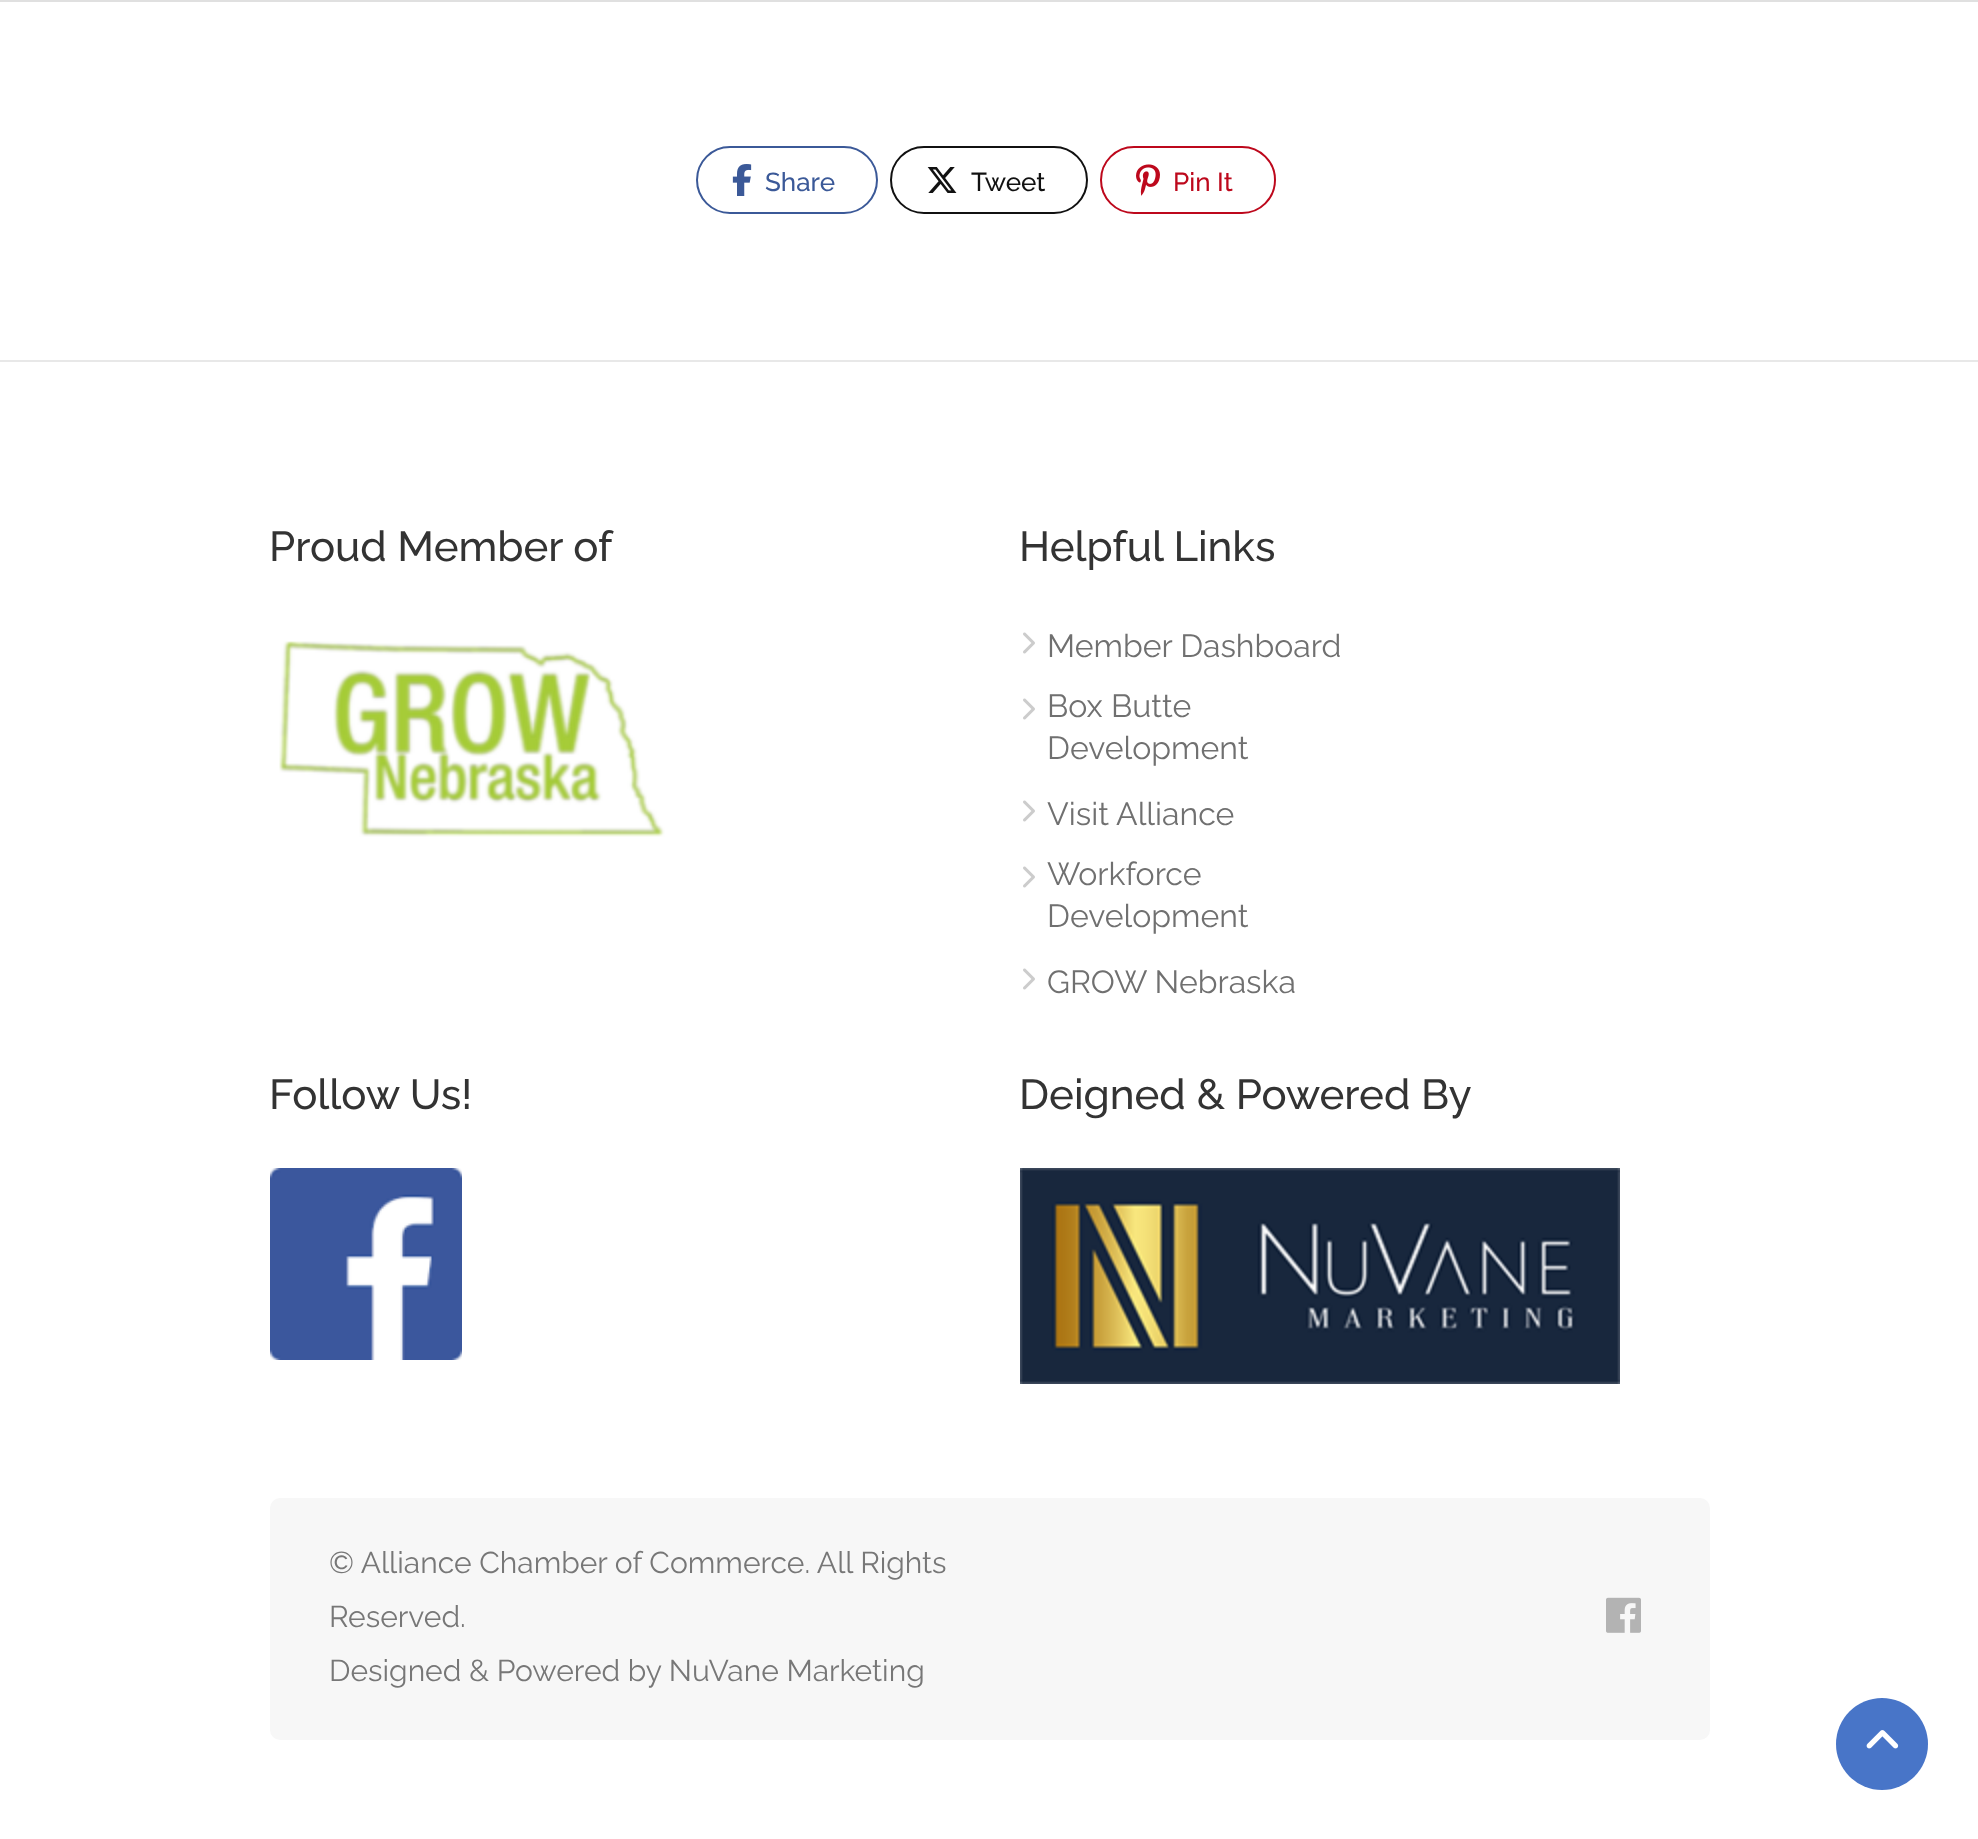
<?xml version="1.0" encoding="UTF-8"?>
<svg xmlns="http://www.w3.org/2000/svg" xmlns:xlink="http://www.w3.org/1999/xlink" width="1978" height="1839">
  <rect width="100%" height="100%" fill="#ffffff" />
  <rect width="1978" height="2" fill="#e0e0e0" />
  <rect x="697" y="147" width="180" height="66" rx="33" fill="none" stroke="#3b5998" stroke-width="2" />
  <image x="732" y="164" width="20" height="32" xlink:href="image1.png" />
  <rect x="891" y="147" width="196" height="66" rx="33" fill="none" stroke="#111111" stroke-width="2" />
  <image x="927" y="167" width="30" height="26" xlink:href="image2.png" />
  <rect x="1101" y="147" width="174" height="66" rx="33" fill="none" stroke="#bd081c" stroke-width="2" />
  <image x="1136" y="164" width="24" height="32" xlink:href="image3.png" />
  <rect y="360" width="1978" height="2" fill="#e8e8e8" />
  <image x="279" y="641" width="386" height="196" xlink:href="image4.png" />
  <image x="1023" y="632" width="12" height="22" xlink:href="image5.png" />
  <image x="1023" y="698" width="12" height="22" xlink:href="image5.png" />
  <image x="1023" y="800" width="12" height="22" xlink:href="image5.png" />
  <image x="1023" y="866" width="12" height="22" xlink:href="image5.png" />
  <image x="1023" y="968" width="12" height="22" xlink:href="image5.png" />
  <image x="270" y="1168" width="192" height="192" xlink:href="image6.png" />
  <image x="1020" y="1168" width="600" height="216" xlink:href="image7.png" />
  <rect x="270" y="1498" width="1440" height="242" rx="10" fill="#f7f7f7" />
  <image x="1606" y="1597" width="35" height="36" xlink:href="image8.png" />
  <circle cx="1882" cy="1744" r="46" fill="#4875c8" />
  <image x="1866" y="1730" width="33" height="19" xlink:href="image9.png" />
  <text x="765" y="191" style="font-family: Raleway; font-size: 26px; font-weight: 500; fill: #3b5998">Share</text>
  <text x="971" y="191" style="font-family: Raleway; font-size: 26px; font-weight: 500; fill: #111111">Tweet</text>
  <text x="1173" y="191" style="font-family: Raleway; font-size: 26px; font-weight: 500; fill: #bd081c">Pin It</text>
  <text x="269" y="561" style="font-family: Raleway; font-size: 42px; font-weight: 500; fill: #333333">Proud Member of</text>
  <text x="1019" y="561" style="font-family: Raleway; font-size: 42px; font-weight: 500; fill: #333333">Helpful Links</text>
  <text x="1047" y="657" style="font-family: Raleway; font-size: 32px; fill: #707070">Member Dashboard</text>
  <text x="1047" y="717" style="font-family: Raleway; font-size: 32px; fill: #707070">Box Butte</text>
  <text x="1047" y="759" style="font-family: Raleway; font-size: 32px; fill: #707070">Development</text>
  <text x="1047" y="825" style="font-family: Raleway; font-size: 32px; fill: #707070">Visit Alliance</text>
  <text x="1047" y="885" style="font-family: Raleway; font-size: 32px; fill: #707070">Workforce</text>
  <text x="1047" y="927" style="font-family: Raleway; font-size: 32px; fill: #707070">Development</text>
  <text x="1047" y="993" style="font-family: Raleway; font-size: 32px; fill: #707070">GROW Nebraska</text>
  <text x="269" y="1109" style="font-family: Raleway; font-size: 42px; font-weight: 500; fill: #333333">Follow Us!</text>
  <text x="1019" y="1109" style="font-family: Raleway; font-size: 42px; font-weight: 500; fill: #333333">Deigned &amp; Powered By</text>
  <text x="329" y="1573" style="font-family: Raleway; font-size: 30px; fill: #777777">© Alliance Chamber of Commerce. All Rights</text>
  <text x="329" y="1627" style="font-family: Raleway; font-size: 30px; fill: #777777">Reserved.</text>
  <text x="329" y="1681" style="font-family: Raleway; font-size: 30px; fill: #777777">Designed &amp; Powered by NuVane Marketing</text>
</svg>
